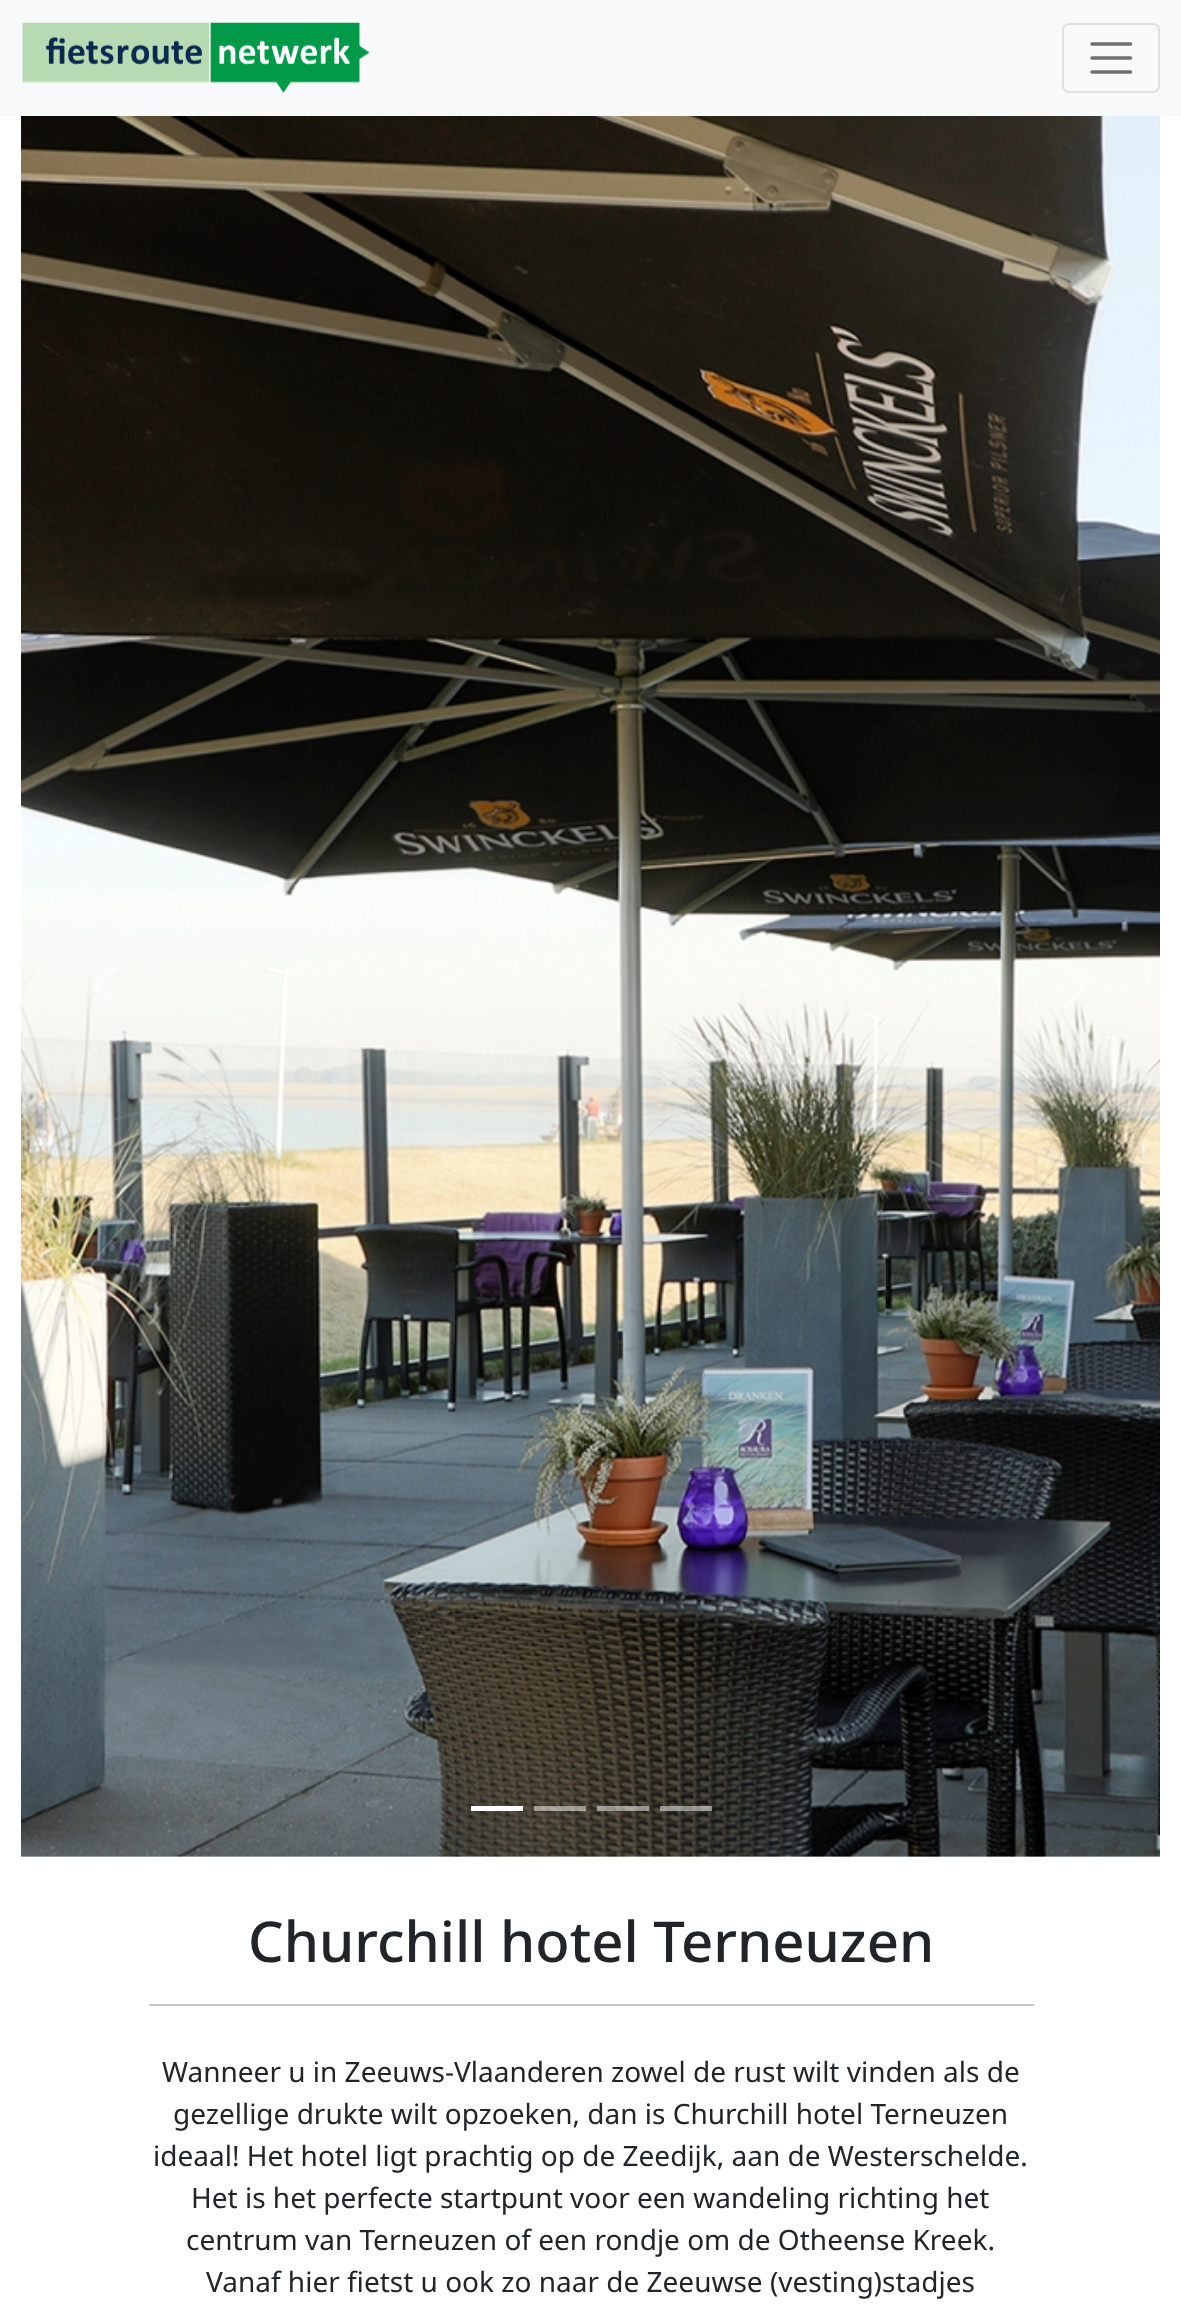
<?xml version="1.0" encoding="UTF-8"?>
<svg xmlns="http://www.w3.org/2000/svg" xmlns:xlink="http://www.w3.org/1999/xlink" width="1181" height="2321">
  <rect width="100%" height="100%" fill="#ffffff" />
  <rect width="1181" height="116" fill="#f8f9fa" />
  <image x="22" y="22" width="348" height="71" xlink:href="image1.png" />
  <rect x="1063" y="24" width="96" height="68" rx="6" fill="none" stroke="#dfe0e1" stroke-width="2" />
  <path d="M 1092 44 h 38.5 m -38.5 14 h 38.5 m -38.5 14 h 38.5" fill="none" stroke="#707071" stroke-width="3.5" stroke-linecap="round" />
  <image x="21" y="116" width="1139" height="1741" xlink:href="image2.png" />
  <image x="95" y="965" width="24" height="44" xlink:href="image3.png" />
  <image x="1062" y="965" width="24" height="45" xlink:href="image4.png" />
  <rect x="471" y="1806" width="52" height="5" fill="#ffffff" />
  <rect x="534" y="1806" width="52" height="5" fill="#ffffff" fill-opacity="0.5" />
  <rect x="597" y="1806" width="52" height="5" fill="#ffffff" fill-opacity="0.5" />
  <rect x="660" y="1806" width="52" height="5" fill="#ffffff" fill-opacity="0.5" />
  <rect x="149" y="2004" width="885" height="2" fill="#c8c9ca" />
  <text x="248" y="1962" style="font-family: Noto Sans; font-size: 56.25px; font-weight: 500; fill: #212529">Churchill hotel Terneuzen</text>
  <text x="162" y="2082" style="font-family: Noto Sans; font-size: 28px; fill: #212529">Wanneer u in Zeeuws-Vlaanderen zowel de rust wilt vinden als de</text>
  <text x="173" y="2124" style="font-family: Noto Sans; font-size: 28px; fill: #212529">gezellige drukte wilt opzoeken, dan is Churchill hotel Terneuzen</text>
  <text x="153" y="2166" style="font-family: Noto Sans; font-size: 28px; fill: #212529">ideaal! Het hotel ligt prachtig op de Zeedijk, aan de Westerschelde.</text>
  <text x="191" y="2208" style="font-family: Noto Sans; font-size: 28px; fill: #212529">Het is het perfecte startpunt voor een wandeling richting het</text>
  <text x="186" y="2250" style="font-family: Noto Sans; font-size: 28px; fill: #212529">centrum van Terneuzen of een rondje om de Otheense Kreek.</text>
  <text x="206" y="2292" style="font-family: Noto Sans; font-size: 28px; fill: #212529">Vanaf hier fietst u ook zo naar de Zeeuwse (vesting)stadjes</text>
</svg>
